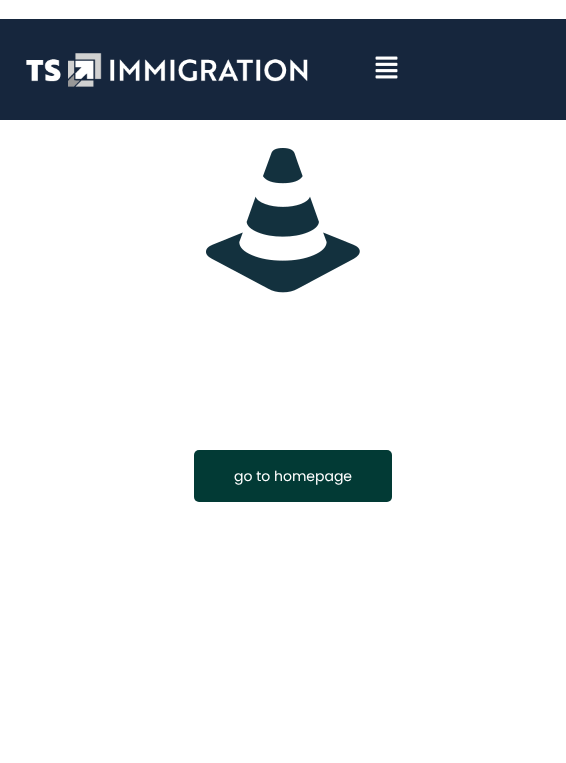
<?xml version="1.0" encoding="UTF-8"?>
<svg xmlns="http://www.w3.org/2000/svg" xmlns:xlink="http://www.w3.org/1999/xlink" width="566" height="763">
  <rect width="100%" height="100%" fill="#ffffff" />
  <rect y="19" width="566" height="101" fill="#16263d" />
  <image x="26" y="53" width="282" height="34" xlink:href="image1.png" />
  <image x="375" y="56" width="23" height="23" xlink:href="image2.png" />
  <image x="206" y="148" width="154" height="145" xlink:href="image3.png" />
  <rect x="194" y="450" width="198" height="52" rx="5" fill="#023a35" />
  <text x="234" y="481" style="font-family: Poppins; font-size: 14px; fill: #ffffff">go to homepage</text>
</svg>
